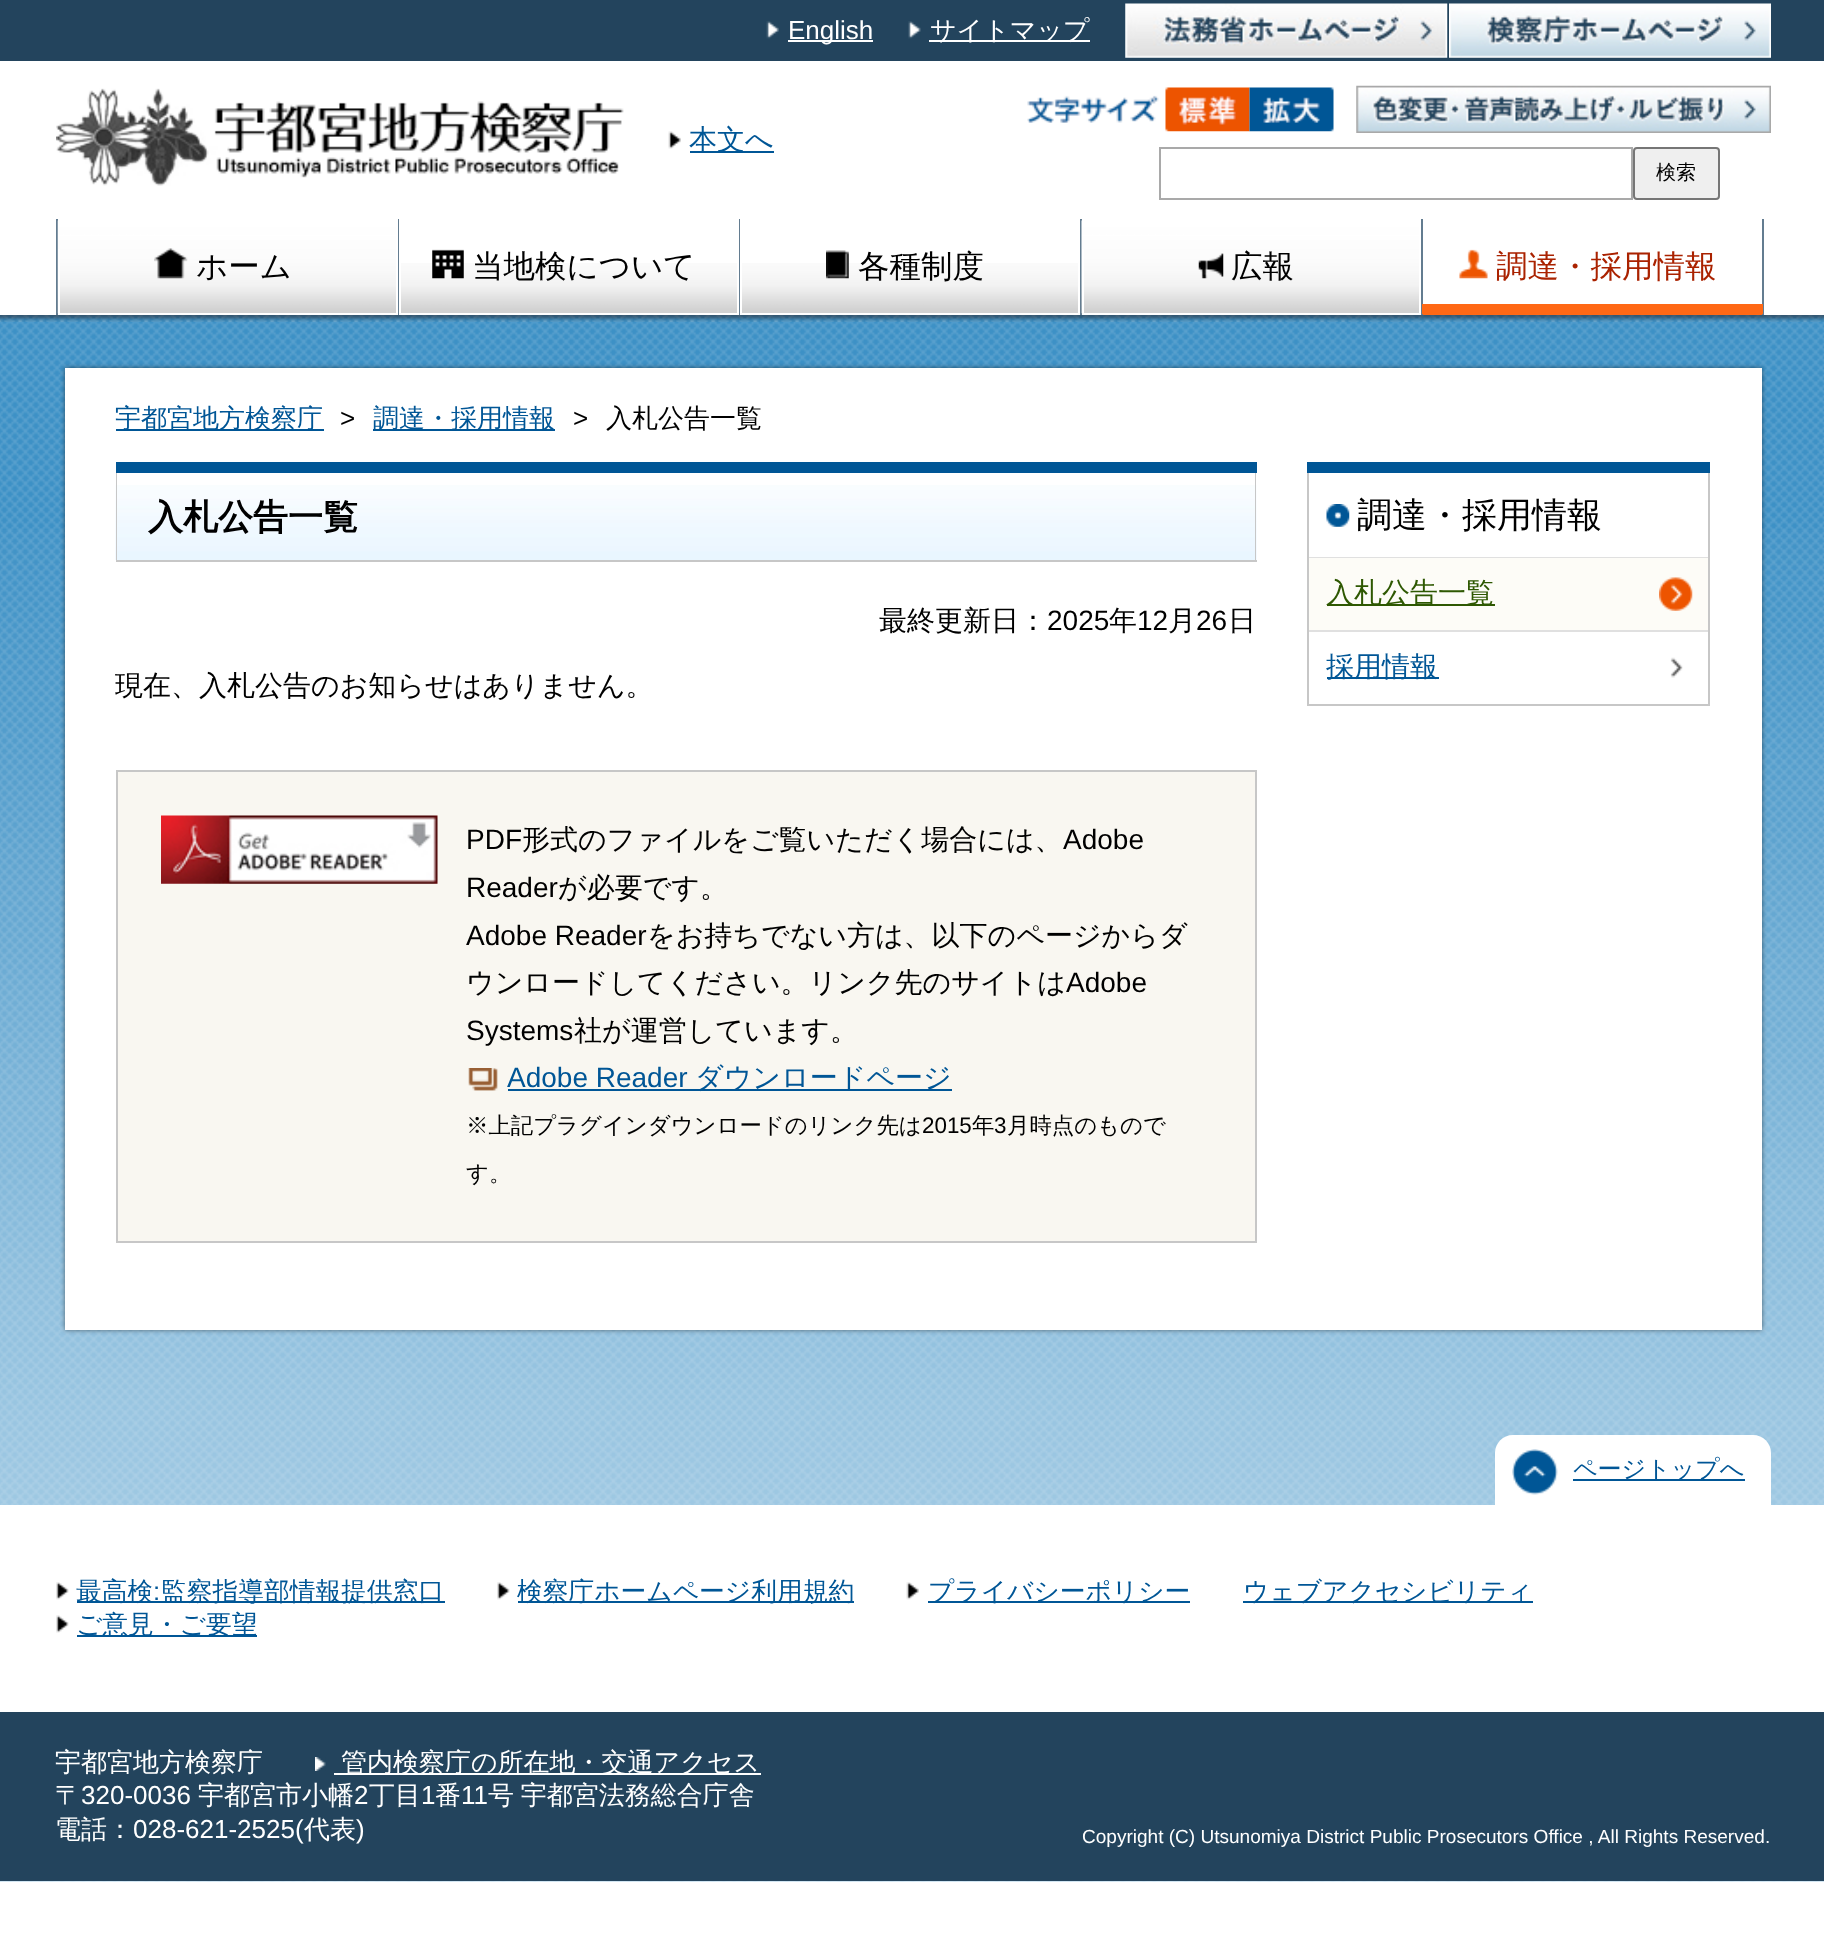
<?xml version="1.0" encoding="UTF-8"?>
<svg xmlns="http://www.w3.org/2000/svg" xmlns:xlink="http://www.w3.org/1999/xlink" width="1824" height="1943">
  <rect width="100%" height="100%" fill="#ffffff" />
  <image x="0" y="315" width="1824" height="1567" xlink:href="image1.png" />
  <rect width="1824" height="61" fill="#23445d" />
  <image x="766" y="21" width="13" height="18" xlink:href="image2.png" />
  <rect x="788" y="40" width="85" height="2" fill="#ffffff" />
  <image x="908" y="21" width="13" height="18" xlink:href="image3.png" />
  <rect x="929" y="40" width="161" height="2" fill="#ffffff" />
  <image x="1125" y="3" width="323" height="55" xlink:href="image4.png" />
  <image x="1449" y="3" width="322" height="55" xlink:href="image5.png" />
  <image x="56" y="88" width="568" height="98" xlink:href="image6.png" />
  <image x="668" y="131" width="13" height="18" xlink:href="image7.png" />
  <rect x="690" y="151" width="84" height="2" fill="#005696" />
  <image x="1027" y="95" width="132" height="28" xlink:href="image8.png" />
  <image x="1165" y="87" width="85" height="45" xlink:href="image9.png" />
  <image x="1249" y="87" width="85" height="45" xlink:href="image10.png" />
  <image x="1356" y="85" width="415" height="48" xlink:href="image11.png" />
  <rect x="1160" y="148" width="472" height="51" fill="none" stroke="#a9a9a9" stroke-width="2" />
  <rect x="1634" y="148" width="85" height="51" rx="3" fill="#efefef" stroke="#767676" stroke-width="2" />
  <rect x="56" y="219" width="2" height="96" fill="#637c90" />
  <rect x="398" y="219" width="1" height="96" fill="#637c90" />
  <image x="57" y="220" width="339" height="94" xlink:href="image12.png" />
  <rect x="58" y="313" width="339" height="1" fill="#ffffff" />
  <rect x="58" y="249" width="2" height="66" fill="#ffffff" />
  <image x="154" y="248" width="34" height="31" xlink:href="image13.png" />
  <rect x="739" y="219" width="1" height="96" fill="#637c90" />
  <image x="401" y="263" width="336" height="50" xlink:href="image14.png" />
  <image x="432" y="249" width="32" height="30" xlink:href="image15.png" />
  <rect x="1080" y="219" width="2" height="96" fill="#637c90" />
  <image x="742" y="263" width="336" height="50" xlink:href="image16.png" />
  <image x="826" y="250" width="23" height="29" xlink:href="image17.png" />
  <rect x="1421" y="219" width="2" height="96" fill="#637c90" />
  <image x="1081" y="220" width="338" height="94" xlink:href="image18.png" />
  <rect x="1082" y="313" width="339" height="1" fill="#ffffff" />
  <rect x="1082" y="249" width="2" height="66" fill="#ffffff" />
  <image x="1198" y="253" width="26" height="26" xlink:href="image19.png" />
  <rect x="1762" y="219" width="2" height="96" fill="#637c90" />
  <rect x="1422" y="304" width="341" height="10" fill="#ff6815" />
  <rect x="1423" y="314" width="339" height="1" fill="#ff6916" />
  <image x="1459" y="249" width="29" height="30" xlink:href="image20.png" />
  <image x="0" y="315" width="1824" height="7" xlink:href="image21.png" />
  <image x="0" y="530" width="1824" height="975" xlink:href="image22.png" />
  <rect x="65" y="368" width="1697" height="962" fill="#000000" fill-opacity="0.5" filter="blur(2.5px)" />
  <rect x="65" y="368" width="1697" height="962" fill="#ffffff" />
  <rect x="116" y="429" width="208" height="2" fill="#005696" />
  <rect x="373" y="429" width="182" height="2" fill="#005696" />
  <image x="115" y="485" width="1142" height="75" xlink:href="image23.png" />
  <path d="M 1256 462 v 100 l -1 -2 v -88 z" fill="#c7c7c7" />
  <rect x="116" y="560" width="1141" height="2" fill="#c7c7c7" />
  <path d="M 116 562 v -100 l 1 10 v 88 z" fill="#c7c7c7" />
  <rect x="116" y="462" width="1141" height="11" fill="#005696" />
  <rect x="117" y="771" width="1139" height="471" fill="#f9f7f1" stroke="#c7c7c7" stroke-width="2" />
  <image x="161" y="815" width="277" height="69" xlink:href="image24.png" />
  <image x="468" y="1068" width="30" height="23" xlink:href="image25.png" />
  <rect x="508" y="1089" width="444" height="2" fill="#005696" />
  <path d="M 1710 462 v 243 l -2 -1 v -232 z" fill="#c7c7c7" />
  <rect x="1307" y="704" width="403" height="2" fill="#c7c7c7" />
  <path d="M 1307 705 v -243 l 2 10 v 232 z" fill="#c7c7c7" />
  <rect x="1307" y="462" width="403" height="11" fill="#005696" />
  <image x="1326" y="504" width="24" height="23" xlink:href="image26.png" />
  <rect x="1309" y="557" width="399" height="1" fill="#e0e0e0" />
  <rect x="1309" y="558" width="399" height="72" fill="#fdfcf7" />
  <image x="1659" y="577" width="34" height="34" xlink:href="image27.png" />
  <rect x="1327" y="604" width="168" height="2" fill="#2e5802" />
  <rect x="1309" y="630" width="399" height="2" fill="#e0e0e0" />
  <image x="1670" y="657" width="13" height="21" xlink:href="image28.png" />
  <rect x="1327" y="677" width="112" height="2" fill="#005696" />
  <rect y="1712" width="1824" height="169" fill="#23445d" />
  <rect y="1505" width="1824" height="207" fill="#ffffff" />
  <path d="M 1513 1435 h 240 c 10 0 18 8 18 18 v 52 h -276 v -52 c 0 -10 8 -18 18 -18 z" fill="#ffffff" />
  <image x="1512" y="1449" width="46" height="46" xlink:href="image29.png" />
  <rect x="1573" y="1479" width="172" height="2" fill="#005696" />
  <image x="56" y="1582" width="13" height="18" xlink:href="image30.png" />
  <rect x="77" y="1601" width="368" height="2" fill="#005696" />
  <image x="497" y="1582" width="13" height="18" xlink:href="image30.png" />
  <rect x="518" y="1601" width="336" height="2" fill="#005696" />
  <image x="906" y="1582" width="13" height="18" xlink:href="image31.png" />
  <rect x="928" y="1601" width="262" height="2" fill="#005696" />
  <rect x="1243" y="1601" width="290" height="2" fill="#005696" />
  <image x="56" y="1615" width="13" height="18" xlink:href="image32.png" />
  <rect x="77" y="1635" width="180" height="2" fill="#005696" />
  <image x="315" y="1757" width="11" height="14" xlink:href="image33.png" />
  <rect x="334" y="1773" width="427" height="2" fill="#ffffff" />
  <text x="788" y="39" style="font-family: Liberation Sans; font-size: 26px; fill: #ffffff">English</text>
  <text x="930" y="39" style="font-family: WenQuanYi Zen Hei; font-size: 26px; font-weight: 500; fill: #ffffff">サイトマップ</text>
  <text x="689" y="149" style="font-family: WenQuanYi Zen Hei; font-size: 28px; font-weight: 500; fill: #005696">本文へ</text>
  <text x="1656" y="179" style="font-family: WenQuanYi Zen Hei; font-size: 20px; font-weight: 500; fill: #000000">検索</text>
  <text x="196" y="277" style="font-family: WenQuanYi Zen Hei; font-size: 31.5px; font-weight: 500; fill: #000000">ホーム</text>
  <text x="472" y="277" style="font-family: WenQuanYi Zen Hei; font-size: 31.5px; font-weight: 500; fill: #000000">当地検について</text>
  <text x="858" y="277" style="font-family: WenQuanYi Zen Hei; font-size: 31.5px; font-weight: 500; fill: #000000">各種制度</text>
  <text x="1231" y="277" style="font-family: WenQuanYi Zen Hei; font-size: 31.5px; font-weight: 500; fill: #000000">広報</text>
  <text x="1496" y="277" style="font-family: WenQuanYi Zen Hei; font-size: 31.5px; font-weight: 500; fill: #aa2200">調達・採用情報</text>
  <text x="115" y="427" style="font-family: WenQuanYi Zen Hei; font-size: 26px; font-weight: 500; fill: #005696">宇都宮地方検察庁</text>
  <text x="340" y="427" style="font-family: Liberation Sans; font-size: 26px; fill: #000000">&gt;</text>
  <text x="373" y="427" style="font-family: WenQuanYi Zen Hei; font-size: 26px; font-weight: 500; fill: #005696">調達・採用情報</text>
  <text x="573" y="427" style="font-family: Liberation Sans; font-size: 26px; fill: #000000">&gt;</text>
  <text x="606" y="427" style="font-family: WenQuanYi Zen Hei; font-size: 26px; font-weight: 500; fill: #000000">入札公告一覧</text>
  <text x="148" y="529" style="font-family: WenQuanYi Zen Hei; font-size: 35px; font-weight: bold; fill: #000000">入札公告一覧</text>
  <text x="879" y="630" style="font-family: WenQuanYi Zen Hei; font-size: 28px; font-weight: 500; fill: #000000">最終更新日：</text>
  <text x="1047" y="630" style="font-family: Liberation Sans; font-size: 28px; fill: #000000">2025</text>
  <text x="1109" y="630" style="font-family: WenQuanYi Zen Hei; font-size: 28px; font-weight: 500; fill: #000000">年</text>
  <text x="1137" y="630" style="font-family: Liberation Sans; font-size: 28px; fill: #000000">12</text>
  <text x="1168" y="630" style="font-family: WenQuanYi Zen Hei; font-size: 28px; font-weight: 500; fill: #000000">月</text>
  <text x="1196" y="630" style="font-family: Liberation Sans; font-size: 28px; fill: #000000">26</text>
  <text x="1228" y="630" style="font-family: WenQuanYi Zen Hei; font-size: 28px; font-weight: 500; fill: #000000">日</text>
  <text x="115" y="695" style="font-family: WenQuanYi Zen Hei; font-size: 28px; font-weight: 500; fill: #000000">現在、入札公告のお知らせはありません。</text>
  <text x="466" y="849" style="font-family: Liberation Sans; font-size: 28px; fill: #000000">PDF</text>
  <text x="522" y="849" style="font-family: WenQuanYi Zen Hei; font-size: 28px; font-weight: 500; fill: #000000">形式のファイルをご覧いただく場合には、</text>
  <text x="1063" y="849" style="font-family: Liberation Sans; font-size: 28px; fill: #000000">Adobe</text>
  <text x="466" y="897" style="font-family: Liberation Sans; font-size: 28px; fill: #000000">Reader</text>
  <text x="558" y="897" style="font-family: WenQuanYi Zen Hei; font-size: 28px; font-weight: 500; fill: #000000">が必要です。</text>
  <text x="466" y="945" style="font-family: Liberation Sans; font-size: 28px; fill: #000000">Adobe Reader</text>
  <text x="647" y="945" style="font-family: WenQuanYi Zen Hei; font-size: 28px; font-weight: 500; fill: #000000">をお持ちでない方は、以下のページからダ</text>
  <text x="466" y="992" style="font-family: WenQuanYi Zen Hei; font-size: 28px; font-weight: 500; fill: #000000">ウンロードしてください。リンク先のサイトは</text>
  <text x="1066" y="992" style="font-family: Liberation Sans; font-size: 28px; fill: #000000">Adobe</text>
  <text x="466" y="1040" style="font-family: Liberation Sans; font-size: 28px; fill: #000000">Systems</text>
  <text x="574" y="1040" style="font-family: WenQuanYi Zen Hei; font-size: 28px; font-weight: 500; fill: #000000">社が運営しています。</text>
  <text x="507" y="1087" style="font-family: Liberation Sans; font-size: 28px; fill: #005696">Adobe Reader</text>
  <text x="695" y="1087" style="font-family: WenQuanYi Zen Hei; font-size: 28px; font-weight: 500; fill: #005696">ダウンロードページ</text>
  <text x="466" y="1133" style="font-family: WenQuanYi Zen Hei; font-size: 22.4px; font-weight: 500; fill: #000000">※上記プラグインダウンロードのリンク先は</text>
  <text x="922" y="1133" style="font-family: Liberation Sans; font-size: 22.4px; fill: #000000">2015</text>
  <text x="972" y="1133" style="font-family: WenQuanYi Zen Hei; font-size: 22.4px; font-weight: 500; fill: #000000">年</text>
  <text x="994" y="1133" style="font-family: Liberation Sans; font-size: 22.4px; fill: #000000">3</text>
  <text x="1007" y="1133" style="font-family: WenQuanYi Zen Hei; font-size: 22.4px; font-weight: 500; fill: #000000">月時点のもので</text>
  <text x="466" y="1181" style="font-family: WenQuanYi Zen Hei; font-size: 22.4px; font-weight: 500; fill: #000000">す。</text>
  <text x="1357" y="527" style="font-family: WenQuanYi Zen Hei; font-size: 35px; font-weight: 500; fill: #000000">調達・採用情報</text>
  <text x="1326" y="602" style="font-family: WenQuanYi Zen Hei; font-size: 28px; font-weight: 500; fill: #2e5802">入札公告一覧</text>
  <text x="1326" y="676" style="font-family: WenQuanYi Zen Hei; font-size: 28px; font-weight: 500; fill: #005696">採用情報</text>
  <text x="1573" y="1477" style="font-family: WenQuanYi Zen Hei; font-size: 24px; font-weight: 500; fill: #005696">ページトップへ</text>
  <text x="76" y="1600" style="font-family: WenQuanYi Zen Hei; font-size: 25.75px; font-weight: 500; fill: #005696">最高検</text>
  <text x="153" y="1600" style="font-family: Liberation Sans; font-size: 25.75px; fill: #005696">:</text>
  <text x="161" y="1600" style="font-family: WenQuanYi Zen Hei; font-size: 25.75px; font-weight: 500; fill: #005696">監察指導部情報提供窓口</text>
  <text x="517" y="1600" style="font-family: WenQuanYi Zen Hei; font-size: 25.75px; font-weight: 500; fill: #005696">検察庁ホームページ利用規約</text>
  <text x="928" y="1600" style="font-family: WenQuanYi Zen Hei; font-size: 25.75px; font-weight: 500; fill: #005696">プライバシーポリシー</text>
  <text x="1243" y="1600" style="font-family: WenQuanYi Zen Hei; font-size: 25.75px; font-weight: 500; fill: #005696">ウェブアクセシビリティ</text>
  <text x="76" y="1633" style="font-family: WenQuanYi Zen Hei; font-size: 25.75px; font-weight: 500; fill: #005696">ご意見・ご要望</text>
  <text x="55" y="1771" style="font-family: WenQuanYi Zen Hei; font-size: 26px; font-weight: 500; fill: #ffffff">宇都宮地方検察庁</text>
  <text x="341" y="1771" style="font-family: WenQuanYi Zen Hei; font-size: 26px; font-weight: 500; fill: #ffffff">管内検察庁の所在地・交通アクセス</text>
  <text x="55" y="1804" style="font-family: WenQuanYi Zen Hei; font-size: 26px; font-weight: 500; fill: #ffffff">〒</text>
  <text x="81" y="1804" style="font-family: Liberation Sans; font-size: 26px; fill: #ffffff">320-0036</text>
  <text x="198" y="1804" style="font-family: WenQuanYi Zen Hei; font-size: 26px; font-weight: 500; fill: #ffffff">宇都宮市小幡</text>
  <text x="354" y="1804" style="font-family: Liberation Sans; font-size: 26px; fill: #ffffff">2</text>
  <text x="369" y="1804" style="font-family: WenQuanYi Zen Hei; font-size: 26px; font-weight: 500; fill: #ffffff">丁目</text>
  <text x="421" y="1804" style="font-family: Liberation Sans; font-size: 26px; fill: #ffffff">1</text>
  <text x="435" y="1804" style="font-family: WenQuanYi Zen Hei; font-size: 26px; font-weight: 500; fill: #ffffff">番</text>
  <text x="461" y="1804" style="font-family: Liberation Sans; font-size: 26px; fill: #ffffff">11</text>
  <text x="488" y="1804" word-spacing="-1" style="font-family: WenQuanYi Zen Hei; font-size: 26px; font-weight: 500; fill: #ffffff">号 宇都宮法務総合庁舎</text>
  <text x="55" y="1838" style="font-family: WenQuanYi Zen Hei; font-size: 26px; font-weight: 500; fill: #ffffff">電話：</text>
  <text x="133" y="1838" style="font-family: Liberation Sans; font-size: 26px; fill: #ffffff">028-621-2525(</text>
  <text x="304" y="1838" style="font-family: WenQuanYi Zen Hei; font-size: 26px; font-weight: 500; fill: #ffffff">代表</text>
  <text x="356" y="1838" style="font-family: Liberation Sans; font-size: 26px; fill: #ffffff">)</text>
  <text x="1082" y="1843" style="font-family: Liberation Sans; font-size: 19.05px; fill: #ffffff">Copyright (C) Utsunomiya District Public Prosecutors Office , All Rights Reserved.</text>
</svg>
